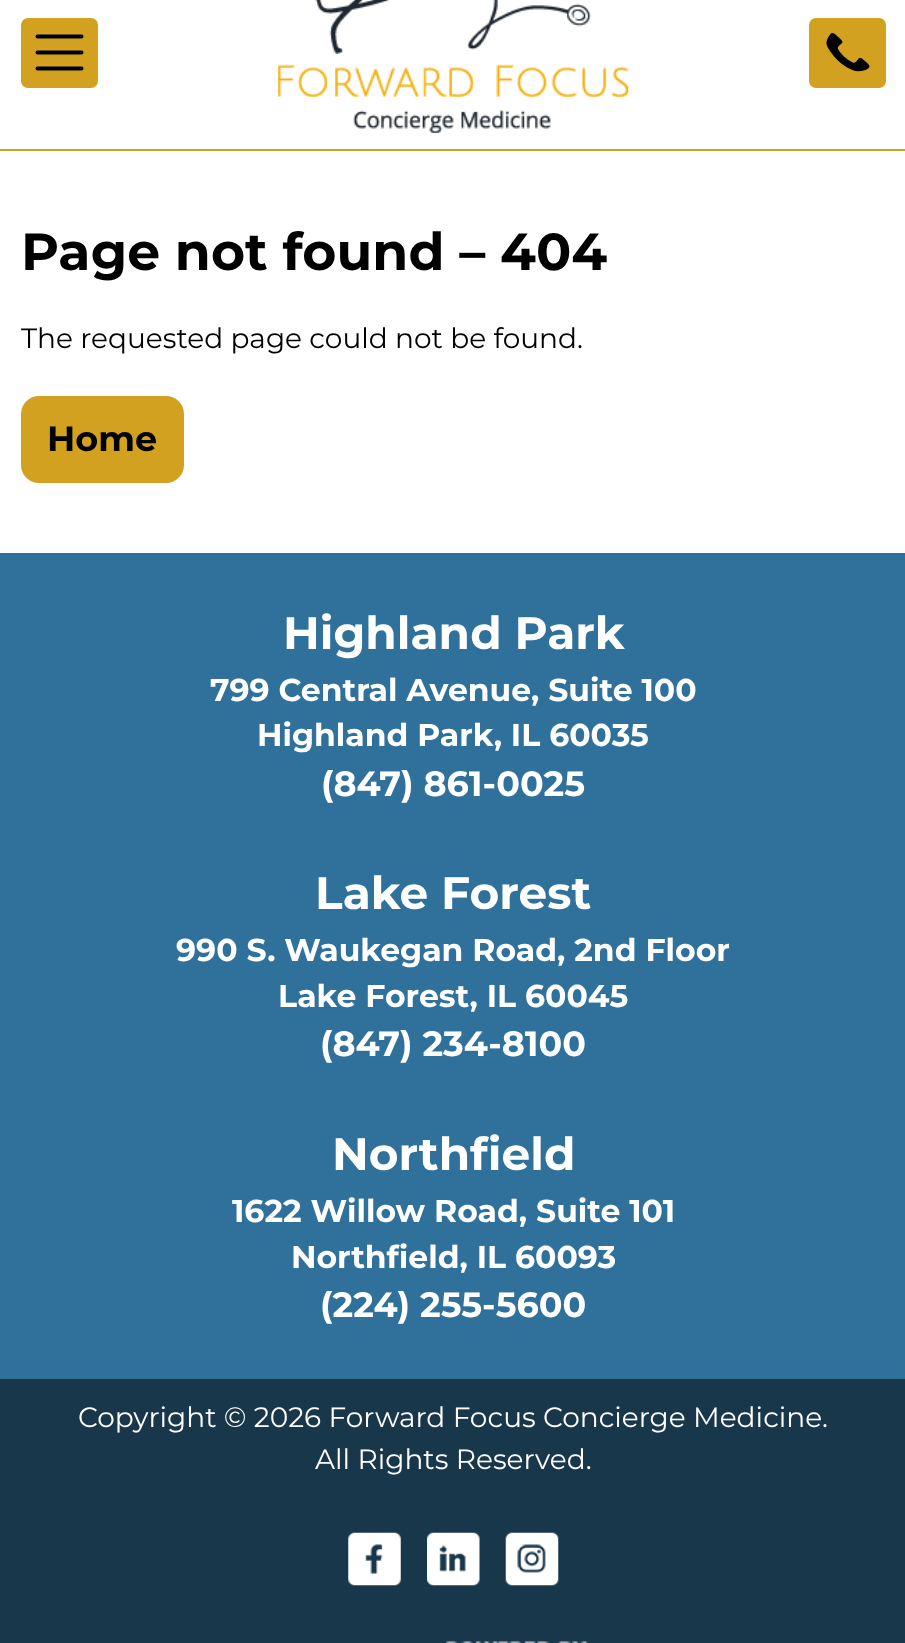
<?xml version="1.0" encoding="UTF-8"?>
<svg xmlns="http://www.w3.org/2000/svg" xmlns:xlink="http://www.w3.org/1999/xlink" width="905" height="1643">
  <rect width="100%" height="100%" fill="#ffffff" />
  <rect y="149" width="905" height="2" fill="#d2a120" />
  <image x="278" y="0" width="351" height="133" xlink:href="image1.png" />
  <rect x="21" y="18" width="77" height="70" rx="7" fill="#d2a120" />
  <path d="M 37.5 36.5 h 44 m -44 16 h 44 m -44 16 h 44" fill="none" stroke="#000000" stroke-width="4" stroke-linecap="round" />
  <rect x="809" y="18" width="77" height="70" rx="7" fill="#d2a120" />
  <image x="826" y="33" width="44" height="39" xlink:href="image2.png" />
  <rect x="21" y="396" width="163" height="87" rx="18" fill="#d2a120" />
  <rect y="553" width="905" height="826" fill="#30719c" />
  <rect y="1379" width="905" height="264" fill="#19374b" />
  <image x="348" y="1532" width="53" height="54" xlink:href="image3.png" />
  <image x="427" y="1532" width="53" height="54" xlink:href="image4.png" />
  <image x="505" y="1532" width="54" height="54" xlink:href="image5.png" />
  <image x="445" y="1641" width="144" height="2" xlink:href="image6.png" />
  <text x="21" y="270" style="font-family: Montserrat; font-size: 52.1px; font-weight: bold; fill: #000000">Page not found – 404</text>
  <text x="21" y="348" style="font-family: Montserrat; font-size: 28px; fill: #000000">The requested page could not be found.</text>
  <text x="47" y="451" style="font-family: Montserrat; font-size: 35px; font-weight: bold; fill: #000000">Home</text>
  <text x="283" y="649" style="font-family: Montserrat; font-size: 45.5px; font-weight: bold; fill: #ffffff">Highland Park</text>
  <text x="210" y="701" style="font-family: Montserrat; font-size: 31.5px; font-weight: bold; fill: #ffffff">799 Central Avenue, Suite 100</text>
  <text x="257" y="746" style="font-family: Montserrat; font-size: 31.5px; font-weight: bold; fill: #ffffff">Highland Park, IL 60035</text>
  <text x="321" y="796" style="font-family: Montserrat; font-size: 35px; font-weight: bold; fill: #ffffff">(847) 861-0025</text>
  <text x="315" y="909" style="font-family: Montserrat; font-size: 45.5px; font-weight: bold; fill: #ffffff">Lake Forest</text>
  <text x="176" y="961" style="font-family: Montserrat; font-size: 31.5px; font-weight: bold; fill: #ffffff">990 S. Waukegan Road, 2nd Floor</text>
  <text x="278" y="1007" style="font-family: Montserrat; font-size: 31.5px; font-weight: bold; fill: #ffffff">Lake Forest, IL 60045</text>
  <text x="320" y="1056" style="font-family: Montserrat; font-size: 35px; font-weight: bold; fill: #ffffff">(847) 234-8100</text>
  <text x="332" y="1170" style="font-family: Montserrat; font-size: 45.5px; font-weight: bold; fill: #ffffff">Northfield</text>
  <text x="232" y="1222" style="font-family: Montserrat; font-size: 31.5px; font-weight: bold; fill: #ffffff">1622 Willow Road, Suite 101</text>
  <text x="291" y="1268" style="font-family: Montserrat; font-size: 31.5px; font-weight: bold; fill: #ffffff">Northfield, IL 60093</text>
  <text x="320" y="1317" style="font-family: Montserrat; font-size: 35px; font-weight: bold; fill: #ffffff">(224) 255-5600</text>
  <text x="78" y="1427" style="font-family: Montserrat; font-size: 28px; fill: #ffffff">Copyright © 2026 Forward Focus Concierge Medicine.</text>
  <text x="315" y="1469" style="font-family: Montserrat; font-size: 28px; fill: #ffffff">All Rights Reserved.</text>
</svg>
